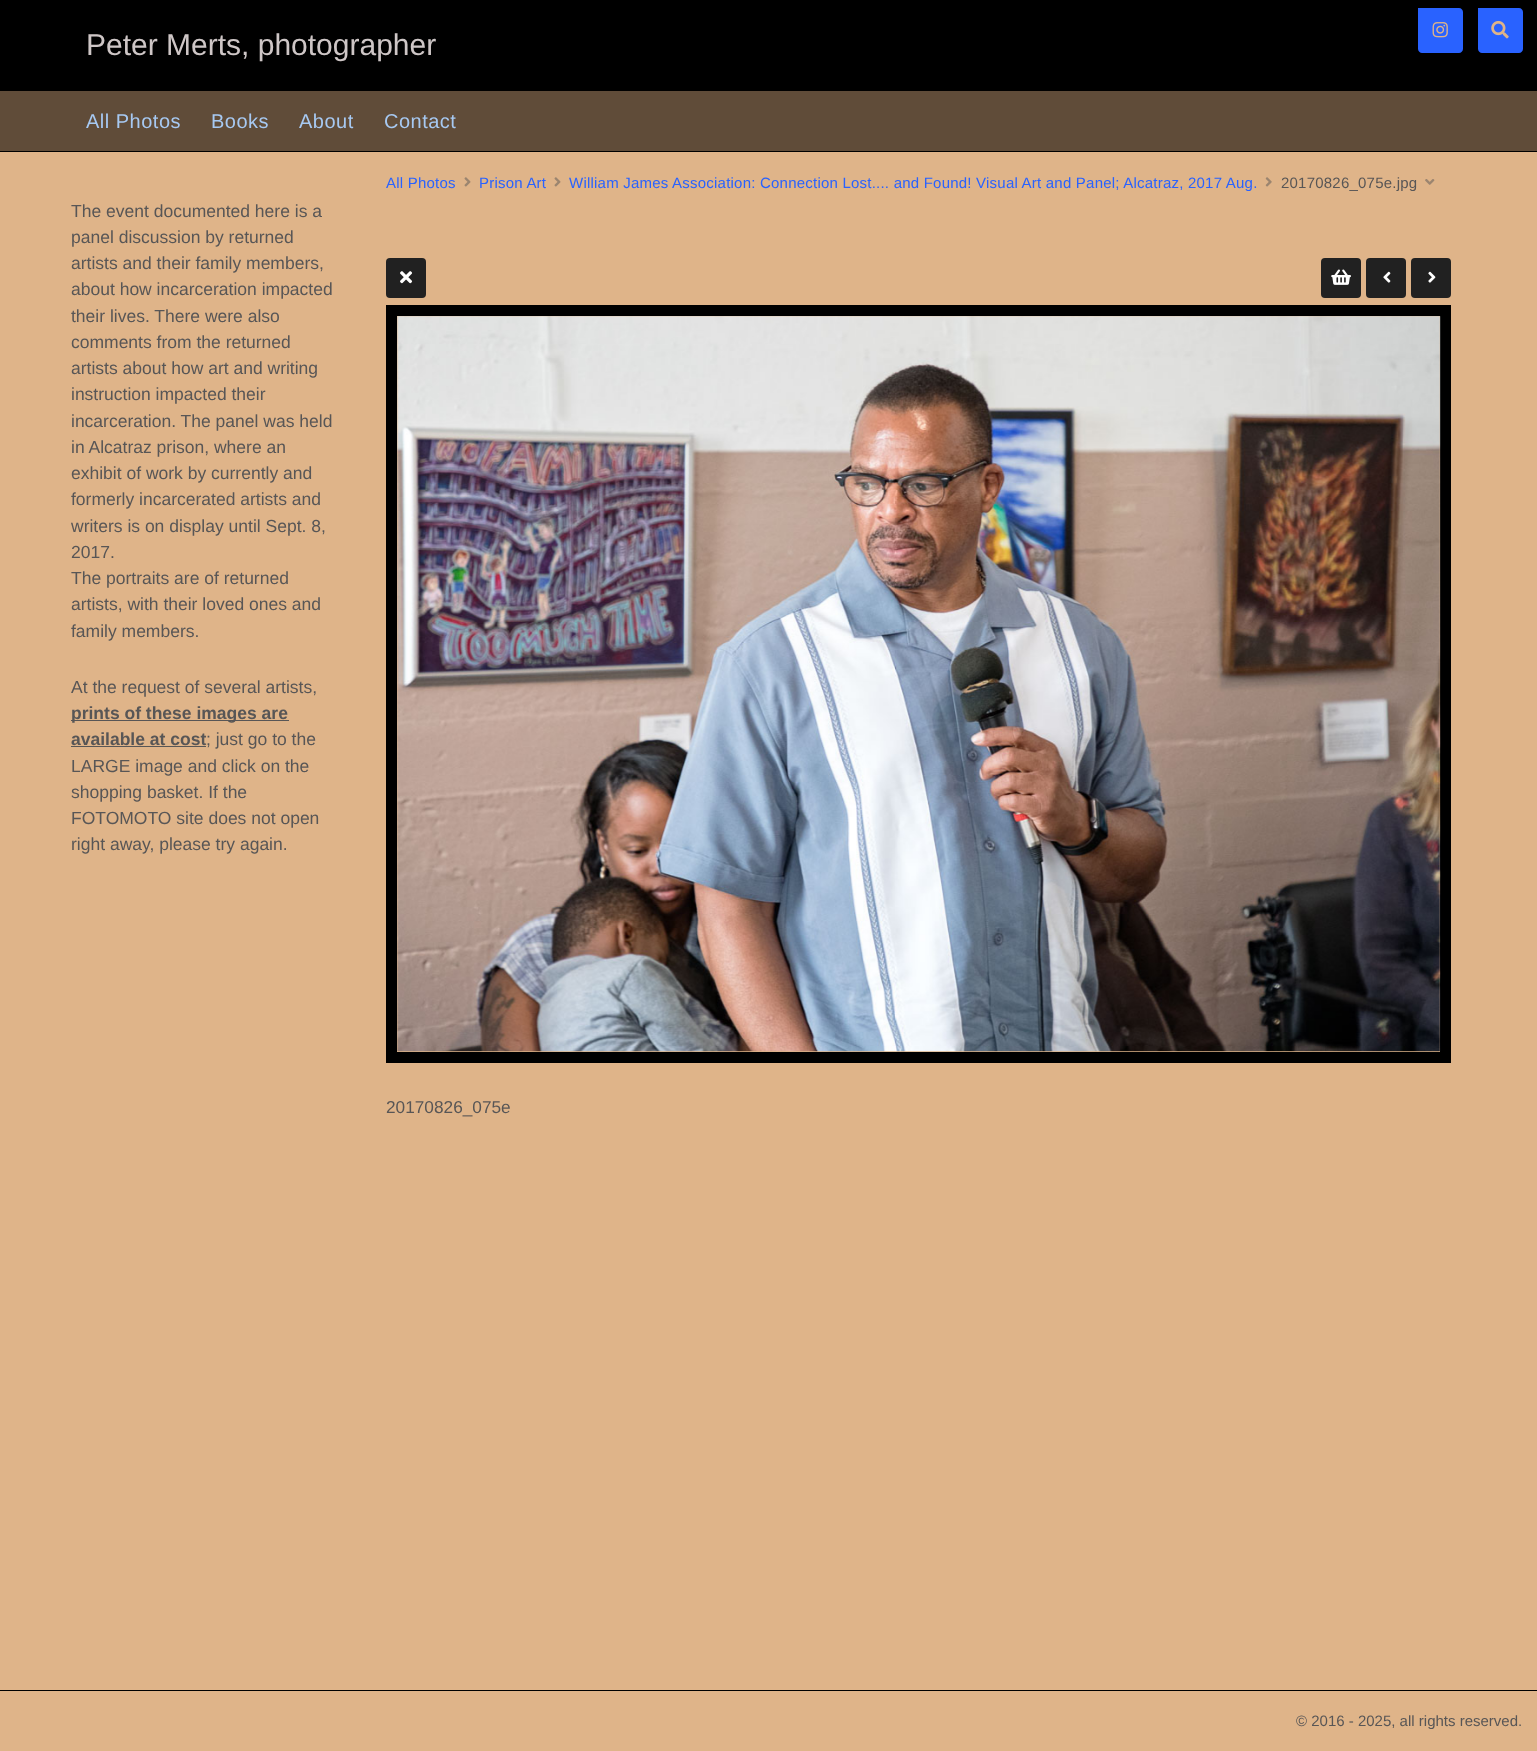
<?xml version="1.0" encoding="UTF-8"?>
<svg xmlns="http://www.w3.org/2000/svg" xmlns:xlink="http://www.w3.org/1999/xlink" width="1537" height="1751">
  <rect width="100%" height="100%" fill="#dfb489" />
  <rect width="1537" height="91" fill="#000000" />
  <path d="M 1418 8 h 41 c 2 0 4 2 4 4 v 37 c 0 2 -2 4 -4 4 h -37 c -2 0 -4 -2 -4 -4 z" fill="#2962ff" />
  <image x="1432" y="22" width="16" height="16" xlink:href="image1.png" />
  <path d="M 1478 8 h 41 c 2 0 4 2 4 4 v 37 c 0 2 -2 4 -4 4 h -37 c -2 0 -4 -2 -4 -4 z" fill="#2962ff" />
  <image x="1491" y="20" width="18" height="19" xlink:href="image2.png" />
  <rect y="91" width="1537" height="60" fill="#604c39" />
  <rect y="151" width="1537" height="1" fill="#000000" />
  <rect x="71" y="720" width="218" height="1" fill="#585656" />
  <rect x="71" y="746" width="135" height="1" fill="#585656" />
  <image x="464" y="177" width="7" height="10" xlink:href="image3.png" />
  <image x="554" y="177" width="7" height="10" xlink:href="image3.png" />
  <image x="1265" y="177" width="7" height="10" xlink:href="image4.png" />
  <image x="1425" y="179" width="10" height="6" xlink:href="image5.png" />
  <rect x="386" y="258" width="40" height="40" rx="4" fill="#212121" />
  <image x="400" y="271" width="13" height="13" xlink:href="image6.png" />
  <rect x="1321" y="258" width="40" height="40" rx="4" fill="#212121" />
  <image x="1331" y="269" width="20" height="16" xlink:href="image7.png" />
  <rect x="1366" y="258" width="40" height="40" rx="4" fill="#212121" />
  <image x="1383" y="271" width="8" height="12" xlink:href="image8.png" />
  <rect x="1411" y="258" width="40" height="40" rx="4" fill="#212121" />
  <image x="1428" y="271" width="8" height="12" xlink:href="image9.png" />
  <rect x="391.5" y="310.5" width="1054" height="747" fill="none" stroke="#000000" stroke-width="11" />
  <image x="397" y="316" width="1044" height="736" xlink:href="image10.png" />
  <rect y="1690" width="1537" height="1" fill="#000000" />
  <text x="86" y="55" style="font-family: Liberation Sans; font-size: 30px; fill: #cec6c6">Peter Merts, photographer</text>
  <text x="86" y="128" style="font-family: Liberation Sans; font-size: 20px; letter-spacing: 0.5px; fill: #a7c9f2">All Photos</text>
  <text x="211" y="128" style="font-family: Liberation Sans; font-size: 20px; letter-spacing: 0.5px; fill: #a7c9f2">Books</text>
  <text x="299" y="128" style="font-family: Liberation Sans; font-size: 20px; letter-spacing: 0.5px; fill: #a7c9f2">About</text>
  <text x="384" y="128" style="font-family: Liberation Sans; font-size: 20px; letter-spacing: 0.5px; fill: #a7c9f2">Contact</text>
  <text x="71" y="217" style="font-family: Liberation Sans; font-size: 17.5px; fill: #585656">The event documented here is a</text>
  <text x="71" y="243" style="font-family: Liberation Sans; font-size: 17.5px; fill: #585656">panel discussion by returned</text>
  <text x="71" y="269" style="font-family: Liberation Sans; font-size: 17.5px; fill: #585656">artists and their family members,</text>
  <text x="71" y="295" style="font-family: Liberation Sans; font-size: 17.5px; fill: #585656">about how incarceration impacted</text>
  <text x="71" y="322" style="font-family: Liberation Sans; font-size: 17.5px; fill: #585656">their lives. There were also</text>
  <text x="71" y="348" style="font-family: Liberation Sans; font-size: 17.5px; fill: #585656">comments from the returned</text>
  <text x="71" y="374" style="font-family: Liberation Sans; font-size: 17.5px; fill: #585656">artists about how art and writing</text>
  <text x="71" y="400" style="font-family: Liberation Sans; font-size: 17.5px; fill: #585656">instruction impacted their</text>
  <text x="71" y="427" style="font-family: Liberation Sans; font-size: 17.5px; fill: #585656">incarceration. The panel was held</text>
  <text x="71" y="453" style="font-family: Liberation Sans; font-size: 17.5px; fill: #585656">in Alcatraz prison, where an</text>
  <text x="71" y="479" style="font-family: Liberation Sans; font-size: 17.5px; fill: #585656">exhibit of work by currently and</text>
  <text x="71" y="505" style="font-family: Liberation Sans; font-size: 17.5px; fill: #585656">formerly incarcerated artists and</text>
  <text x="71" y="532" style="font-family: Liberation Sans; font-size: 17.5px; fill: #585656">writers is on display until Sept. 8,</text>
  <text x="71" y="558" style="font-family: Liberation Sans; font-size: 17.5px; fill: #585656">2017.</text>
  <text x="71" y="584" style="font-family: Liberation Sans; font-size: 17.5px; fill: #585656">The portraits are of returned</text>
  <text x="71" y="610" style="font-family: Liberation Sans; font-size: 17.5px; fill: #585656">artists, with their loved ones and</text>
  <text x="71" y="637" style="font-family: Liberation Sans; font-size: 17.5px; fill: #585656">family members.</text>
  <text x="71" y="693" style="font-family: Liberation Sans; font-size: 17.5px; fill: #585656">At the request of several artists,</text>
  <text x="71" y="719" style="font-family: Liberation Sans; font-size: 17.5px; font-weight: bold; fill: #585656">prints of these images are</text>
  <text x="71" y="745" style="font-family: Liberation Sans; font-size: 17.5px; font-weight: bold; fill: #585656">available at cost</text>
  <text x="206" y="745" style="font-family: Liberation Sans; font-size: 17.5px; fill: #585656">; just go to the</text>
  <text x="71" y="772" style="font-family: Liberation Sans; font-size: 17.5px; fill: #585656">LARGE image and click on the</text>
  <text x="71" y="798" style="font-family: Liberation Sans; font-size: 17.5px; fill: #585656">shopping basket. If the</text>
  <text x="71" y="824" style="font-family: Liberation Sans; font-size: 17.5px; fill: #585656">FOTOMOTO site does not open</text>
  <text x="71" y="850" style="font-family: Liberation Sans; font-size: 17.5px; fill: #585656">right away, please try again.</text>
  <text x="386" y="188" style="font-family: Liberation Sans; font-size: 15px; letter-spacing: 0.22px; fill: #2962ff">All Photos</text>
  <text x="479" y="188" style="font-family: Liberation Sans; font-size: 15px; letter-spacing: 0.22px; fill: #2962ff">Prison Art</text>
  <text x="569" y="188" style="font-family: Liberation Sans; font-size: 15px; letter-spacing: 0.22px; fill: #2962ff">William James Association: Connection Lost.... and Found! Visual Art and Panel; Alcatraz, 2017 Aug.</text>
  <text x="1281" y="188" style="font-family: Liberation Sans; font-size: 15px; letter-spacing: 0.22px; fill: #585656">20170826_075e.jpg</text>
  <text x="386" y="1113" style="font-family: Liberation Sans; font-size: 17.25px; fill: #585656">20170826_075e</text>
  <text x="1296" y="1726" style="font-family: Liberation Sans; font-size: 15px; fill: #585656">© 2016 - 2025, all rights reserved.</text>
</svg>
